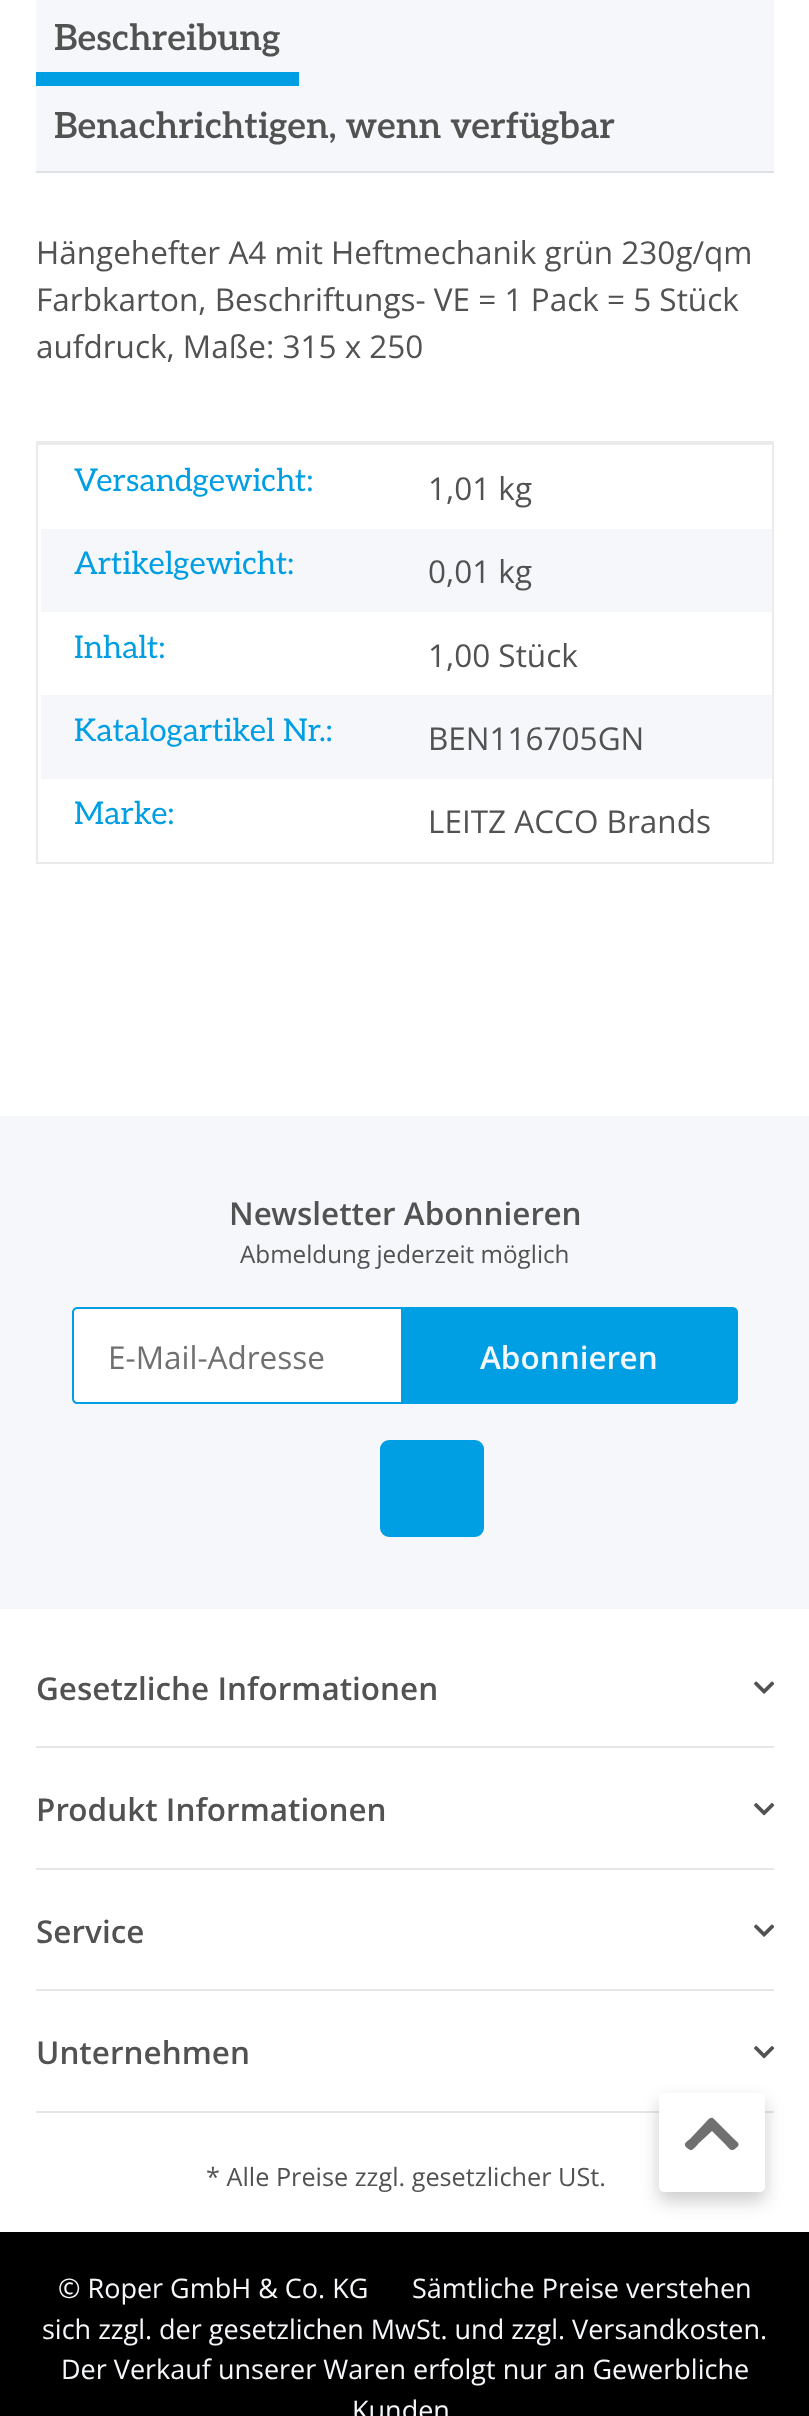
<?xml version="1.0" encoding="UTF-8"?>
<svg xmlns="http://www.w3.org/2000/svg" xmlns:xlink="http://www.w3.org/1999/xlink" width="809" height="2416">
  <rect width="100%" height="100%" fill="#ffffff" />
  <rect x="36" width="738" height="171" fill="#f5f7fa" />
  <rect x="36" y="171" width="738" height="2" fill="#dee2e6" />
  <rect x="36" y="72" width="263" height="14" fill="#009ee3" />
  <rect x="36" y="441" width="738" height="4" fill="#ebebeb" />
  <rect x="772" y="529" width="2" height="335" fill="#ebebeb" />
  <rect x="772" y="443" width="2" height="88" fill="#ebebeb" />
  <rect x="36" y="862" width="738" height="2" fill="#ebebeb" />
  <rect x="36" y="529" width="2" height="335" fill="#ebebeb" />
  <rect x="36" y="443" width="2" height="88" fill="#ebebeb" />
  <rect x="41" y="529" width="731" height="83" fill="#f5f7fa" />
  <rect x="41" y="695" width="731" height="84" fill="#f5f7fa" />
  <rect y="1116" width="809" height="493" fill="#f5f7fa" />
  <path d="M 76 1310 h 325 v 92 h -325 c -1 0 -2 -1 -2 -2 v -88 c 0 -1 1 -2 2 -2 z" fill="#ffffff" />
  <path d="M 77 1308 h 325 v 95 h -325 c -2 0 -4 -2 -4 -4 v -87 c 0 -2 2 -4 4 -4 z" fill="none" stroke="#009ee3" stroke-width="2" />
  <path d="M 402 1308 h 331 c 2 0 4 2 4 4 v 87 c 0 2 -2 4 -4 4 h -331 z" fill="#009ee3" stroke="#009ee3" stroke-width="2" />
  <rect x="381" y="1441" width="102" height="95" rx="8" fill="#009ee3" stroke="#009ee3" stroke-width="2" />
  <image x="754" y="1681" width="21" height="13" xlink:href="image1.png" />
  <rect x="36" y="1746" width="738" height="2" fill="#e6e6e6" />
  <image x="754" y="1803" width="21" height="13" xlink:href="image2.png" />
  <rect x="36" y="1868" width="738" height="2" fill="#e6e6e6" />
  <image x="754" y="1924" width="21" height="13" xlink:href="image1.png" />
  <rect x="36" y="1989" width="738" height="2" fill="#e6e6e6" />
  <image x="754" y="2046" width="21" height="13" xlink:href="image2.png" />
  <rect x="36" y="2111" width="738" height="2" fill="#e6e6e6" />
  <rect x="659" y="2102" width="106" height="99" rx="5" fill="#000000" fill-opacity="0.2" filter="blur(9px)" />
  <rect x="659" y="2093" width="106" height="99" rx="5" fill="#ffffff" />
  <path d="M 714 2119 l 20 20 c 4 4 7 5 2 9 c -5 5 -7 0 -12 -5 l -12 -12 l -13 12 c -2 2 -6 8 -9 7 l -3 -2 c -4 -4 -2 -5 3 -9 l 15 -16 c 2 -2 6 -8 9 -4 z" fill="#707070" />
  <rect y="2232" width="809" height="184" fill="#000000" />
  <text x="54" y="50" style="font-family: Aleo; font-size: 36px; font-weight: 600; fill: #525252">Beschreibung</text>
  <text x="54" y="138" style="font-family: Aleo; font-size: 36px; font-weight: 600; fill: #525252">Benachrichtigen, wenn verfügbar</text>
  <text x="36" y="264" style="font-family: Open Sans; font-size: 31.5px; fill: #525252">Hängehefter A4 mit Heftmechanik grün 230g/qm</text>
  <text x="36" y="311" style="font-family: Open Sans; font-size: 31.5px; fill: #525252">Farbkarton, Beschriftungs- VE = 1 Pack = 5 Stück</text>
  <text x="36" y="358" style="font-family: Open Sans; font-size: 31.5px; fill: #525252">aufdruck, Maße: 315 x 250</text>
  <text x="74" y="491" style="font-family: Aleo; font-size: 31.5px; fill: #009ee3">Versandgewicht:</text>
  <text x="428" y="500" style="font-family: Open Sans; font-size: 31.5px; fill: #525252">1,01 kg</text>
  <text x="74" y="574" style="font-family: Aleo; font-size: 31.5px; fill: #009ee3">Artikelgewicht:</text>
  <text x="428" y="583" style="font-family: Open Sans; font-size: 31.5px; fill: #525252">0,01 kg</text>
  <text x="74" y="658" style="font-family: Aleo; font-size: 31.5px; fill: #009ee3">Inhalt:</text>
  <text x="428" y="667" style="font-family: Open Sans; font-size: 31.5px; fill: #525252">1,00 Stück</text>
  <text x="74" y="741" style="font-family: Aleo; font-size: 31.5px; fill: #009ee3">Katalogartikel Nr.:</text>
  <text x="428" y="750" style="font-family: Open Sans; font-size: 31.5px; fill: #525252">BEN116705GN</text>
  <text x="74" y="824" style="font-family: Aleo; font-size: 31.5px; fill: #009ee3">Marke:</text>
  <text x="428" y="833" style="font-family: Open Sans; font-size: 31.5px; fill: #525252">LEITZ ACCO Brands</text>
  <text x="229" y="1225" style="font-family: Open Sans; font-size: 31.5px; font-weight: 600; fill: #525252">Newsletter Abonnieren</text>
  <text x="240" y="1263" style="font-family: Open Sans; font-size: 24.25px; fill: #525252">Abmeldung jederzeit möglich</text>
  <text x="108" y="1369" style="font-family: Open Sans; font-size: 31.5px; fill: #707070">E-Mail-Adresse</text>
  <text x="480" y="1369" style="font-family: Open Sans; font-size: 31.5px; font-weight: 600; fill: #f5f7fa">Abonnieren</text>
  <text x="36" y="1700" style="font-family: Open Sans; font-size: 31.5px; font-weight: 600; fill: #525252">Gesetzliche Informationen</text>
  <text x="36" y="1821" style="font-family: Open Sans; font-size: 31.5px; font-weight: 600; fill: #525252">Produkt Informationen</text>
  <text x="36" y="1943" style="font-family: Open Sans; font-size: 31.5px; font-weight: 600; fill: #525252">Service</text>
  <text x="36" y="2064" style="font-family: Open Sans; font-size: 31.5px; font-weight: 600; fill: #525252">Unternehmen</text>
  <text x="206" y="2186" style="font-family: Open Sans; font-size: 25.25px; fill: #525252">* Alle Preise zzgl. gesetzlicher USt.</text>
  <text x="58" y="2298" style="font-family: Open Sans; font-size: 27px; fill: #f5f7fa">© Roper GmbH &amp; Co. KG</text>
  <text x="412" y="2298" style="font-family: Open Sans; font-size: 27px; fill: #f5f7fa">Sämtliche Preise verstehen</text>
  <text x="42" y="2339" style="font-family: Open Sans; font-size: 27px; fill: #f5f7fa">sich zzgl. der gesetzlichen MwSt. und zzgl. Versandkosten.</text>
  <text x="61" y="2379" style="font-family: Open Sans; font-size: 27px; fill: #f5f7fa">Der Verkauf unserer Waren erfolgt nur an Gewerbliche</text>
  <text x="352" y="2420" style="font-family: Open Sans; font-size: 27px; fill: #f5f7fa">Kunden</text>
</svg>
